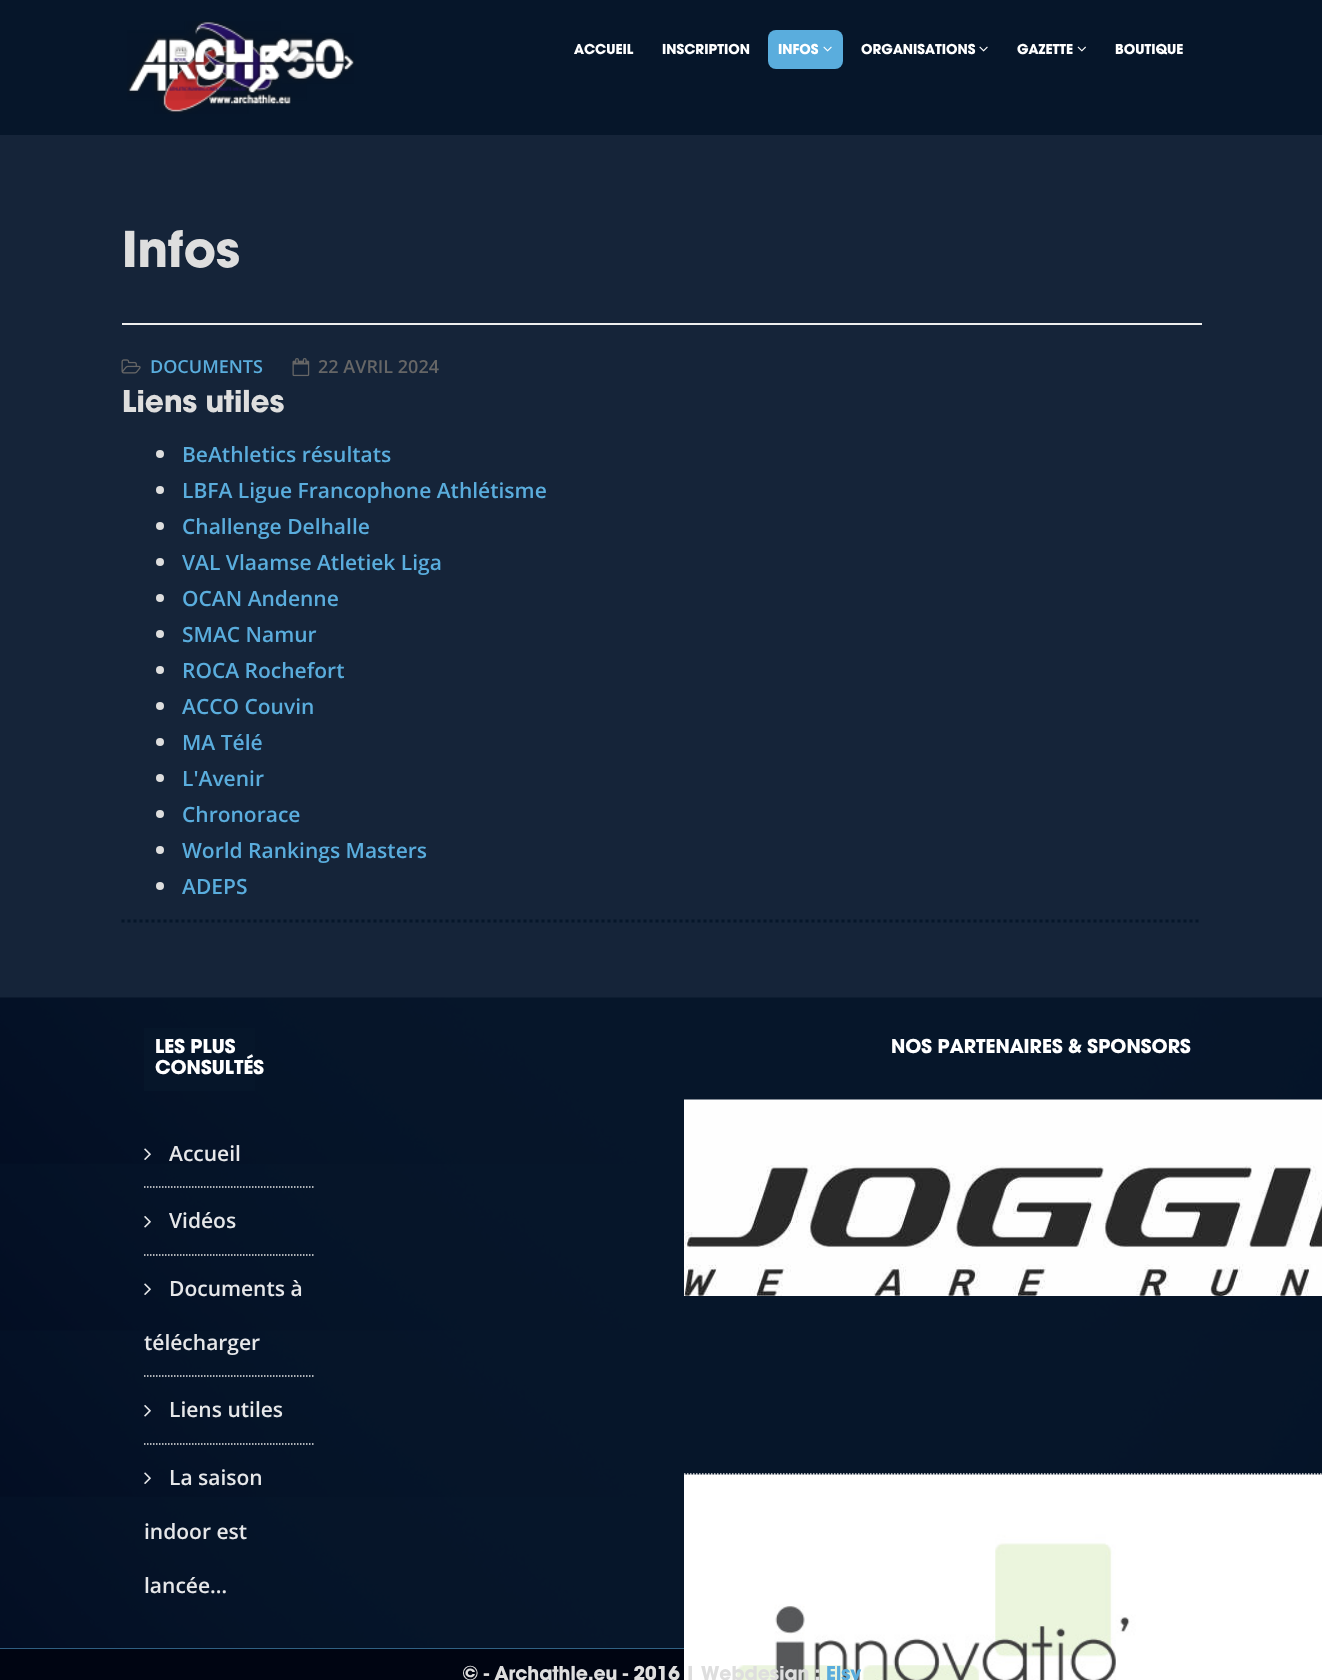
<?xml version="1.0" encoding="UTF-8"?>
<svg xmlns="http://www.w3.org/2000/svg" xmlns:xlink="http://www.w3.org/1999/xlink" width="1322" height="1680">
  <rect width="100%" height="100%" fill="#152439" />
  <rect width="1322" height="135" fill="#06162a" />
  <image x="127" y="21" width="227" height="93" xlink:href="image1.png" />
  <rect x="768" y="30" width="75" height="39" rx="8" fill="#5aaddd" />
  <image x="823" y="46" width="9" height="6" xlink:href="image2.png" />
  <image x="979" y="46" width="9" height="6" xlink:href="image3.png" />
  <image x="1077" y="46" width="9" height="6" xlink:href="image4.png" />
  <path d="M 121.5 921 h 1080" fill="none" stroke="#06162a" stroke-width="3" stroke-dasharray="3 3" />
  <rect x="122" y="323" width="1080" height="2" fill="#eeeeee" />
  <image x="121" y="359" width="20" height="15" xlink:href="image5.png" />
  <image x="292" y="358" width="18" height="19" xlink:href="image6.png" />
  <circle cx="160" cy="454" r="4" fill="#dedede" />
  <circle cx="160" cy="490" r="4" fill="#dedede" />
  <circle cx="160" cy="526" r="4" fill="#dedede" />
  <circle cx="160" cy="562" r="4" fill="#dedede" />
  <circle cx="160" cy="598" r="4" fill="#dedede" />
  <circle cx="160" cy="634" r="4" fill="#dedede" />
  <circle cx="160" cy="670" r="4" fill="#dedede" />
  <circle cx="160" cy="706" r="4" fill="#dedede" />
  <circle cx="160" cy="742" r="4" fill="#dedede" />
  <circle cx="160" cy="778" r="4" fill="#dedede" />
  <circle cx="160" cy="814" r="4" fill="#dedede" />
  <circle cx="160" cy="850" r="4" fill="#dedede" />
  <circle cx="160" cy="886" r="4" fill="#dedede" />
  <rect y="1648" width="684" height="1" fill="#5aaddd" />
  <image x="0" y="997" width="1322" height="652" xlink:href="image7.png" />
  <rect x="144" y="1028" width="111" height="63" fill="#06162a" />
  <path d="M 144 1187 h 171" fill="none" stroke="#e8e8e8" stroke-width="1.5" stroke-dasharray="1.5 1.5" />
  <image x="144" y="1148" width="7" height="12" xlink:href="image8.png" />
  <path d="M 144 1255 h 171" fill="none" stroke="#e8e8e8" stroke-width="1.5" stroke-dasharray="1.5 1.5" />
  <image x="144" y="1216" width="7" height="12" xlink:href="image9.png" />
  <path d="M 144 1376 h 171" fill="none" stroke="#e8e8e8" stroke-width="1.5" stroke-dasharray="1.5 1.5" />
  <image x="144" y="1283" width="7" height="12" xlink:href="image10.png" />
  <path d="M 144 1444 h 171" fill="none" stroke="#e8e8e8" stroke-width="1.5" stroke-dasharray="1.5 1.5" />
  <image x="144" y="1405" width="7" height="12" xlink:href="image11.png" />
  <image x="144" y="1472" width="7" height="12" xlink:href="image8.png" />
  <path d="M 684 1474 h 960" fill="none" stroke="#e8e8e8" stroke-width="1.5" stroke-dasharray="1.5 1.5" />
  <image x="684" y="1099" width="638" height="197" xlink:href="image12.png" />
  <image x="684" y="1474" width="638" height="206" xlink:href="image13.png" />
  <rect y="1649" width="684" height="31" fill="#000512" />
  <text x="574" y="54" style="font-family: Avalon; font-size: 15px; font-weight: bold; fill: #ffffff">ACCUEIL</text>
  <text x="662" y="54" style="font-family: Avalon; font-size: 15px; font-weight: bold; fill: #ffffff">INSCRIPTION</text>
  <text x="778" y="54" style="font-family: Avalon; font-size: 15px; font-weight: bold; fill: #ffffff">INFOS</text>
  <text x="861" y="54" style="font-family: Avalon; font-size: 15px; font-weight: bold; fill: #ffffff">ORGANISATIONS</text>
  <text x="1017" y="54" style="font-family: Avalon; font-size: 15px; font-weight: bold; fill: #ffffff">GAZETTE</text>
  <text x="1115" y="54" style="font-family: Avalon; font-size: 15px; font-weight: bold; fill: #ffffff">BOUTIQUE</text>
  <text x="122" y="267" style="font-family: Avalon; font-size: 54px; font-weight: bold; fill: #dedede">Infos</text>
  <text x="150" y="373" style="font-family: Open Sans; font-size: 18px; font-weight: 600; fill: #5aaddd">DOCUMENTS</text>
  <text x="318" y="373" style="font-family: Open Sans; font-size: 18px; font-weight: 600; fill: #666666">22 AVRIL 2024</text>
  <text x="122" y="412" style="font-family: Avalon; font-size: 33px; font-weight: bold; fill: #dedede">Liens utiles</text>
  <text x="182" y="462" style="font-family: Open Sans; font-size: 21px; font-weight: 600; fill: #5aaddd">BeAthletics résultats</text>
  <text x="182" y="498" style="font-family: Open Sans; font-size: 21px; font-weight: 600; fill: #5aaddd">LBFA Ligue Francophone Athlétisme</text>
  <text x="182" y="534" style="font-family: Open Sans; font-size: 21px; font-weight: 600; fill: #5aaddd">Challenge Delhalle</text>
  <text x="182" y="570" style="font-family: Open Sans; font-size: 21px; font-weight: 600; fill: #5aaddd">VAL Vlaamse Atletiek Liga</text>
  <text x="182" y="606" style="font-family: Open Sans; font-size: 21px; font-weight: 600; fill: #5aaddd">OCAN Andenne</text>
  <text x="182" y="642" style="font-family: Open Sans; font-size: 21px; font-weight: 600; fill: #5aaddd">SMAC Namur</text>
  <text x="182" y="678" style="font-family: Open Sans; font-size: 21px; font-weight: 600; fill: #5aaddd">ROCA Rochefort</text>
  <text x="182" y="714" style="font-family: Open Sans; font-size: 21px; font-weight: 600; fill: #5aaddd">ACCO Couvin</text>
  <text x="182" y="750" style="font-family: Open Sans; font-size: 21px; font-weight: 600; fill: #5aaddd">MA Télé</text>
  <text x="182" y="786" style="font-family: Open Sans; font-size: 21px; font-weight: 600; fill: #5aaddd">L'Avenir</text>
  <text x="182" y="822" style="font-family: Open Sans; font-size: 21px; font-weight: 600; fill: #5aaddd">Chronorace</text>
  <text x="182" y="858" style="font-family: Open Sans; font-size: 21px; font-weight: 600; fill: #5aaddd">World Rankings Masters</text>
  <text x="182" y="894" style="font-family: Open Sans; font-size: 21px; font-weight: 600; fill: #5aaddd">ADEPS</text>
  <text x="155" y="1053" style="font-family: Avalon; font-size: 21px; font-weight: bold; fill: #ffffff">LES PLUS</text>
  <text x="155" y="1074" style="font-family: Avalon; font-size: 21px; font-weight: bold; fill: #ffffff">CONSULTÉS</text>
  <text x="169" y="1161" style="font-family: Open Sans; font-size: 21px; font-weight: 600; fill: #e6e7e9">Accueil</text>
  <text x="169" y="1228" style="font-family: Open Sans; font-size: 21px; font-weight: 600; fill: #e6e7e9">Vidéos</text>
  <text x="169" y="1296" style="font-family: Open Sans; font-size: 21px; font-weight: 600; fill: #e6e7e9">Documents à</text>
  <text x="144" y="1350" style="font-family: Open Sans; font-size: 21px; font-weight: 600; fill: #e6e7e9">télécharger</text>
  <text x="169" y="1417" style="font-family: Open Sans; font-size: 21px; font-weight: 600; fill: #e6e7e9">Liens utiles</text>
  <text x="169" y="1485" style="font-family: Open Sans; font-size: 21px; font-weight: 600; fill: #e6e7e9">La saison</text>
  <text x="144" y="1539" style="font-family: Open Sans; font-size: 21px; font-weight: 600; fill: #e6e7e9">indoor est</text>
  <text x="144" y="1593" style="font-family: Open Sans; font-size: 21px; font-weight: 600; fill: #e6e7e9">lancée…</text>
  <text x="891" y="1053" style="font-family: Avalon; font-size: 21px; font-weight: bold; fill: #ffffff">NOS PARTENAIRES &amp; SPONSORS</text>
  <text x="462" y="1680" style="font-family: Avalon; font-size: 21px; font-weight: bold; fill: #dedede">© - Archathle.eu - 2016 | Webdesign :</text>
  <text x="826" y="1680" style="font-family: Avalon; font-size: 21px; font-weight: bold; fill: #5aaddd">Elsy</text>
</svg>
